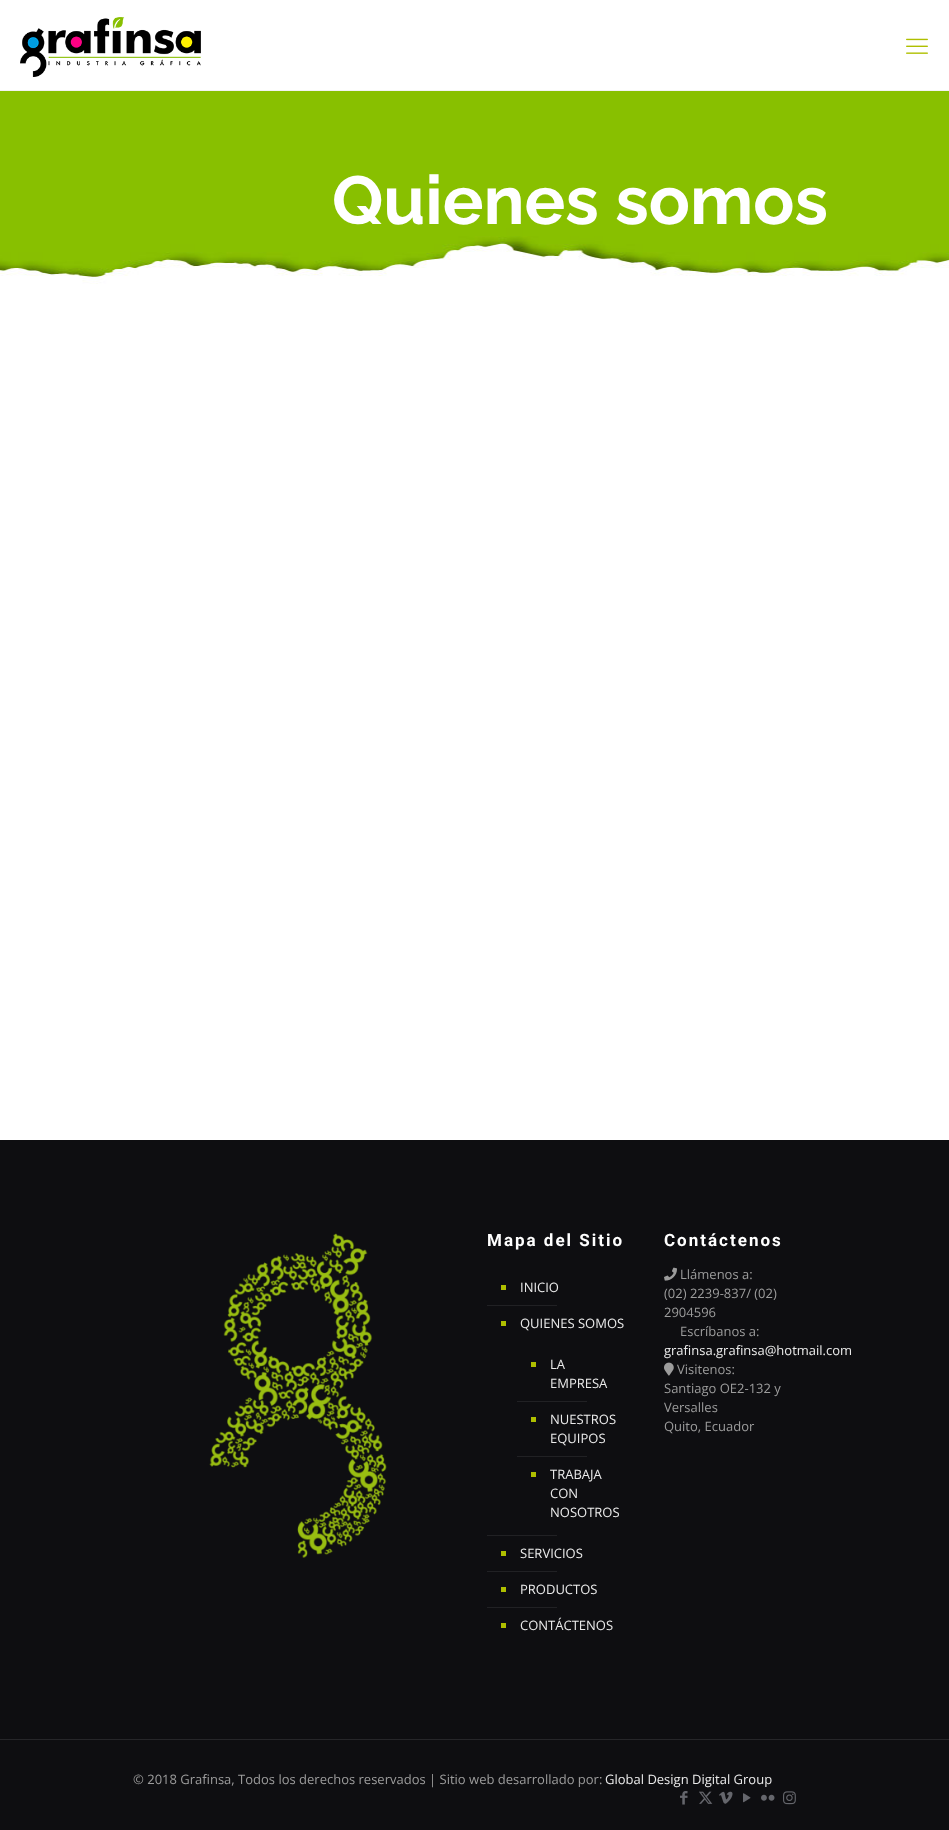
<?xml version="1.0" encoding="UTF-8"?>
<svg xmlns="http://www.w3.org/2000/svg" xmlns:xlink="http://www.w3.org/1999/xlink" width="949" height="1830">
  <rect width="100%" height="100%" fill="#ffffff" />
  <image x="0" y="91" width="949" height="223" xlink:href="image1.png" />
  <rect y="90" width="949" height="1" fill="#f2f2f2" />
  <image x="20" y="17" width="181" height="60" xlink:href="image2.png" />
  <image x="906" y="38" width="22" height="16" xlink:href="image3.png" />
  <rect y="1140" width="949" height="690" fill="#0e0e11" />
  <image x="209" y="1233" width="178" height="325" xlink:href="image4.png" />
  <rect x="501" y="1285" width="5" height="5" fill="#afbf00" />
  <rect x="487" y="1305" width="70" height="1" fill="#212124" />
  <rect x="501" y="1321" width="5" height="5" fill="#afbf00" />
  <rect x="531" y="1362" width="5" height="5" fill="#afbf00" />
  <rect x="517" y="1401" width="70" height="1" fill="#212124" />
  <rect x="531" y="1417" width="5" height="5" fill="#afbf00" />
  <rect x="517" y="1456" width="70" height="1" fill="#212124" />
  <rect x="531" y="1472" width="5" height="5" fill="#afbf00" />
  <rect x="487" y="1535" width="70" height="1" fill="#212124" />
  <rect x="501" y="1551" width="5" height="5" fill="#afbf00" />
  <rect x="487" y="1571" width="70" height="1" fill="#212124" />
  <rect x="501" y="1587" width="5" height="5" fill="#afbf00" />
  <rect x="487" y="1607" width="70" height="1" fill="#212124" />
  <rect x="501" y="1623" width="5" height="5" fill="#afbf00" />
  <image x="664" y="1267" width="13" height="14" xlink:href="image5.png" />
  <image x="664" y="1362" width="10" height="14" xlink:href="image6.png" />
  <rect y="1739" width="949" height="1" fill="#262629" />
  <image x="680" y="1791" width="8" height="14" xlink:href="image7.png" />
  <image x="699" y="1791" width="14" height="13" xlink:href="image8.png" />
  <image x="719" y="1791" width="14" height="13" xlink:href="image9.png" />
  <image x="743" y="1793" width="8" height="10" xlink:href="image10.png" />
  <image x="761" y="1794" width="14" height="7" xlink:href="image11.png" />
  <image x="783" y="1791" width="13" height="14" xlink:href="image12.png" />
  <text x="332" y="224" style="font-family: Raleway; font-size: 68px; font-weight: bold; fill: #ffffff">Quienes somos</text>
  <text x="487" y="1246" style="font-family: Roboto; font-size: 17px; font-weight: bold; letter-spacing: 2px; fill: #ffffff">Mapa del Sitio</text>
  <text x="520" y="1292" style="font-family: Open Sans; font-size: 13px; fill: #ebebeb">INICIO</text>
  <text x="520" y="1328" style="font-family: Open Sans; font-size: 13px; fill: #ebebeb">QUIENES SOMOS</text>
  <text x="550" y="1369" style="font-family: Open Sans; font-size: 13px; fill: #ebebeb">LA</text>
  <text x="550" y="1388" style="font-family: Open Sans; font-size: 13px; fill: #ebebeb">EMPRESA</text>
  <text x="550" y="1424" style="font-family: Open Sans; font-size: 13px; fill: #ebebeb">NUESTROS</text>
  <text x="550" y="1443" style="font-family: Open Sans; font-size: 13px; fill: #ebebeb">EQUIPOS</text>
  <text x="550" y="1479" style="font-family: Open Sans; font-size: 13px; fill: #ebebeb">TRABAJA</text>
  <text x="550" y="1498" style="font-family: Open Sans; font-size: 13px; fill: #ebebeb">CON</text>
  <text x="550" y="1517" style="font-family: Open Sans; font-size: 13px; fill: #ebebeb">NOSOTROS</text>
  <text x="520" y="1558" style="font-family: Open Sans; font-size: 13px; fill: #ebebeb">SERVICIOS</text>
  <text x="520" y="1594" style="font-family: Open Sans; font-size: 13px; fill: #ebebeb">PRODUCTOS</text>
  <text x="520" y="1630" style="font-family: Open Sans; font-size: 13px; fill: #ebebeb">CONTÁCTENOS</text>
  <text x="664" y="1246" style="font-family: Roboto; font-size: 17px; font-weight: bold; letter-spacing: 2px; fill: #ffffff">Contáctenos</text>
  <text x="680" y="1279" style="font-family: Open Sans; font-size: 13px; fill: #9c9c9c">Llámenos a:</text>
  <text x="664" y="1298" style="font-family: Open Sans; font-size: 13px; fill: #9c9c9c">(02) 2239-837/ (02)</text>
  <text x="664" y="1317" style="font-family: Open Sans; font-size: 13px; fill: #9c9c9c">2904596</text>
  <text x="680" y="1336" style="font-family: Open Sans; font-size: 13px; fill: #9c9c9c">Escríbanos a:</text>
  <text x="664" y="1355" style="font-family: Open Sans; font-size: 13px; fill: #ebebeb">grafinsa.grafinsa@hotmail.com</text>
  <text x="677" y="1374" style="font-family: Open Sans; font-size: 13px; fill: #9c9c9c">Visitenos:</text>
  <text x="664" y="1393" style="font-family: Open Sans; font-size: 13px; fill: #9c9c9c">Santiago OE2-132 y</text>
  <text x="664" y="1412" style="font-family: Open Sans; font-size: 13px; fill: #9c9c9c">Versalles</text>
  <text x="664" y="1431" style="font-family: Open Sans; font-size: 13px; fill: #9c9c9c">Quito, Ecuador</text>
  <text x="133" y="1784" style="font-family: Open Sans; font-size: 13px; fill: #9c9c9c">© 2018 Grafinsa, Todos los derechos reservados | Sitio web desarrollado por:</text>
  <text x="605" y="1784" style="font-family: Open Sans; font-size: 13px; fill: #ebebeb">Global Design Digital Group</text>
</svg>
